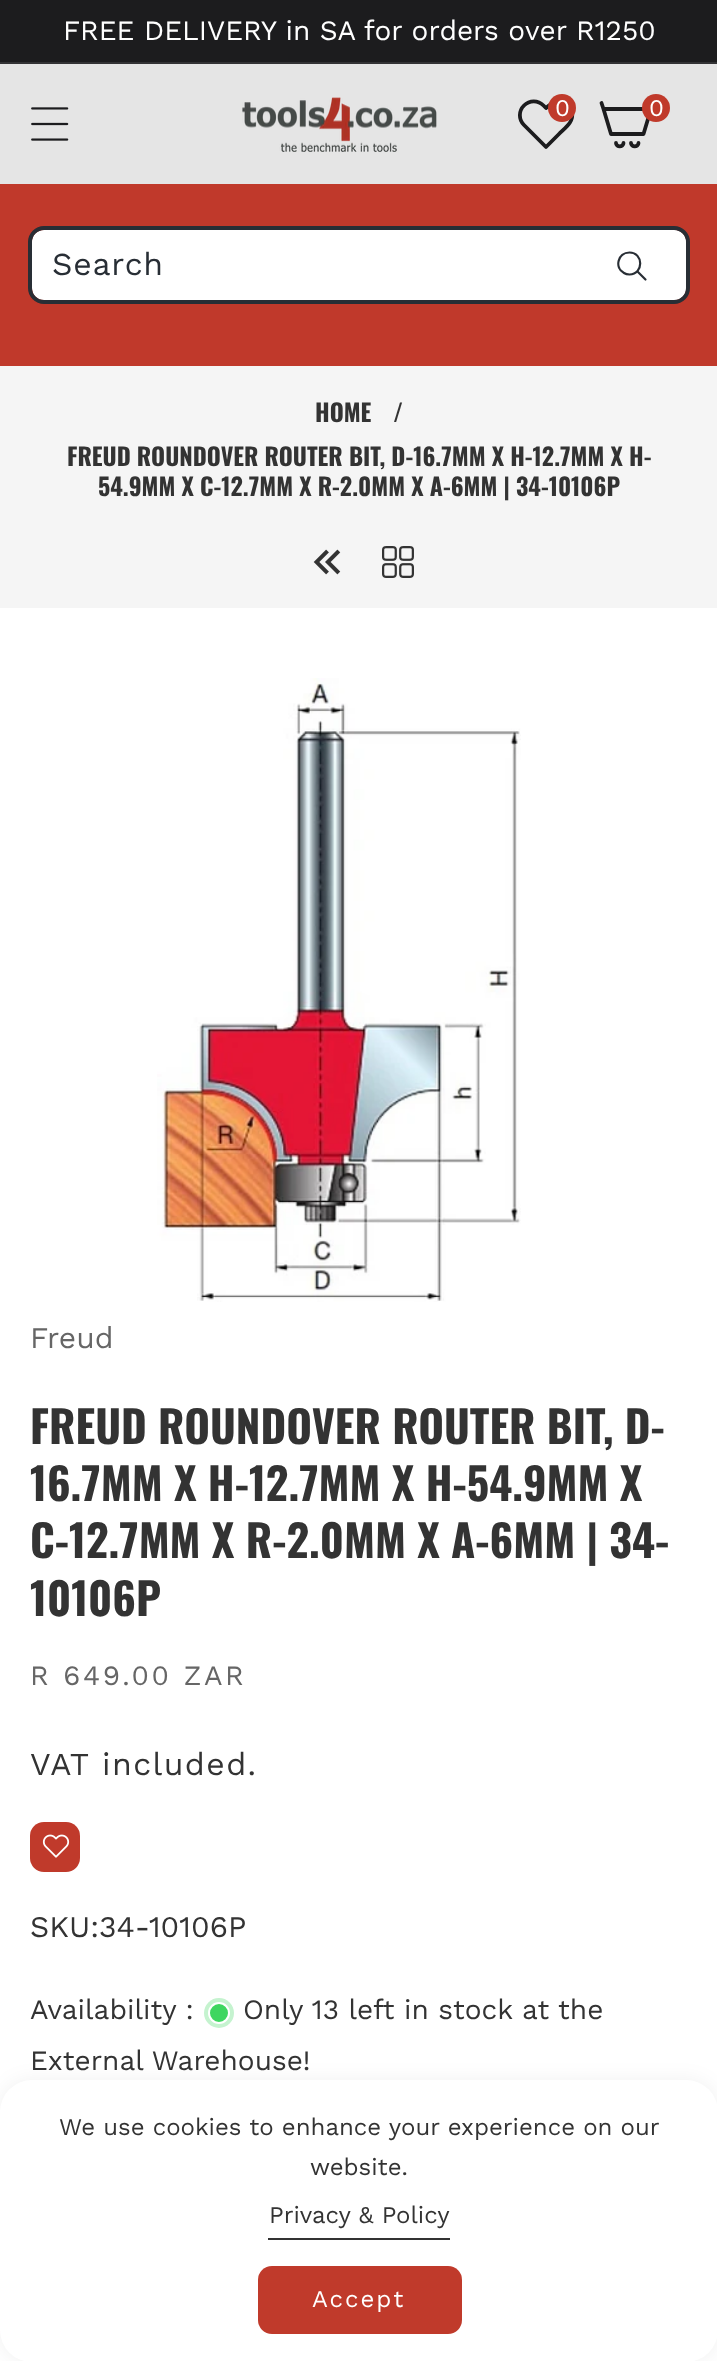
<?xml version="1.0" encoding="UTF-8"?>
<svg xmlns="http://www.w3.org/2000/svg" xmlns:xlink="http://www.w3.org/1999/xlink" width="717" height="2361">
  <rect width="100%" height="100%" fill="#ffffff" />
  <rect width="717" height="62" fill="#1c1c1e" />
  <rect y="62" width="717" height="2" fill="#333335" />
  <rect y="64" width="717" height="120" fill="#e5e5e5" />
  <image x="31" y="107" width="38" height="34" xlink:href="image1.png" />
  <image x="242" y="97" width="195" height="55" xlink:href="image2.png" />
  <path d="M 568 105.5 c -7.5 -7.5 -15.5 -3.5 -22 2.5 l -2.5 -2.5 c -5.5 -5.5 -14 -5.5 -19.5 0 c -5.5 5.5 -5.5 14 0 19.5 l 22 22 l 13 -13 c 6 -6 15 -12 13 -21.5 c -0.5 -2.5 -2 -5 -4 -7 z" fill="none" stroke="#1c1c1e" stroke-width="3.8" stroke-linecap="round" stroke-linejoin="round" />
  <circle cx="562" cy="108" r="14" fill="#c03a2b" />
  <path d="M 603.5 109 h 47.5 l -7.5 25 h -32.5 z m 0 0 l -2 -6 m 22 40 c 0 4.5 -7.5 4.5 -7.5 0 m 22.5 0 c 0 4.5 -7.5 4.5 -7.5 0" fill="none" stroke="#1c1c1e" stroke-width="3.8" stroke-linecap="round" stroke-linejoin="round" />
  <circle cx="656" cy="108" r="14" fill="#c03a2b" />
  <rect y="184" width="717" height="182" fill="#c0392b" />
  <rect x="32" y="230" width="654" height="70" rx="12" fill="#ffffff" />
  <path d="M 576 230 h 98 c 6.5 0 12 5.5 12 12 v 46 c 0 6.5 -5.5 12 -12 12 h -98 z" fill="#ffffff" />
  <path d="M 629.5 252.5 c -11.5 0 -15.5 15 -5.5 20.5 c 1.5 1 3.5 1.5 5.5 1.5 c 14.5 -0.5 14 -22 0 -22 z" fill="none" stroke="#282e35" stroke-width="2.2" />
  <path d="M 638 272 l 7.5 7.5" fill="none" stroke="#282e35" stroke-width="2.2" stroke-linecap="round" />
  <rect x="30" y="228" width="658" height="74" rx="14" fill="none" stroke="#282e35" stroke-width="4" />
  <rect y="366" width="717" height="242" fill="#f5f5f5" />
  <image x="313" y="549" width="28" height="26" xlink:href="image3.png" />
  <image x="382" y="546" width="32" height="32" xlink:href="image4.png" />
  <image x="157" y="678" width="364" height="624" xlink:href="image5.png" />
  <rect x="30" y="1822" width="50" height="50" rx="14" fill="#c03a2b" />
  <image x="42" y="1834" width="28" height="24" xlink:href="image6.png" />
  <circle cx="219" cy="2013" r="15" fill="#c5f3cf" />
  <circle cx="219" cy="2013" r="10" fill="#3ed660" stroke="#ffffff" stroke-width="2" />
  <rect y="2080" width="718" height="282" rx="32" fill="#000000" fill-opacity="0.06" filter="blur(10px)" />
  <rect y="2080" width="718" height="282" rx="32" fill="#ffffff" />
  <rect x="268" y="2238" width="182" height="2" fill="#333333" />
  <rect x="258" y="2266" width="204" height="68" rx="14" fill="#c03a2b" />
  <text x="63" y="40" style="font-family: Work Sans; font-size: 28px; fill: #ffffff">FREE DELIVERY in SA for orders over R1250</text>
  <text x="555" y="116" style="font-family: Work Sans; font-size: 24px; fill: #ffffff">0</text>
  <text x="649" y="116" style="font-family: Work Sans; font-size: 24px; fill: #ffffff">0</text>
  <text x="52" y="275" style="font-family: Work Sans; font-size: 32px; letter-spacing: 0.75px; fill: #282e35">Search</text>
  <text x="315" y="422" style="font-family: Oswald; font-size: 24px; font-weight: bold; fill: #333333">HOME</text>
  <text x="393" y="422" style="font-family: Oswald; font-size: 24px; font-weight: bold; fill: #333333">/</text>
  <text x="67" y="466" style="font-family: Oswald; font-size: 24px; font-weight: bold; fill: #333333">FREUD ROUNDOVER ROUTER BIT, D-16.7MM X H-12.7MM X H-</text>
  <text x="98" y="496" style="font-family: Oswald; font-size: 24px; font-weight: bold; fill: #333333">54.9MM X C-12.7MM X R-2.0MM X A-6MM | 34-10106P</text>
  <text x="30" y="1348" style="font-family: Work Sans; font-size: 30px; fill: #666666">Freud</text>
  <text x="30" y="1444" style="font-family: Oswald; font-size: 44px; font-weight: bold; fill: #333333">FREUD ROUNDOVER ROUTER BIT, D-</text>
  <text x="30" y="1501" style="font-family: Oswald; font-size: 44px; font-weight: bold; fill: #333333">16.7MM X H-12.7MM X H-54.9MM X</text>
  <text x="30" y="1558" style="font-family: Oswald; font-size: 44px; font-weight: bold; fill: #333333">C-12.7MM X R-2.0MM X A-6MM | 34-</text>
  <text x="30" y="1616" style="font-family: Oswald; font-size: 44px; font-weight: bold; fill: #333333">10106P</text>
  <text x="30" y="1685" style="font-family: Work Sans; font-size: 28px; letter-spacing: 2.6px; fill: #666666">R 649.00 ZAR</text>
  <text x="30" y="1775" style="font-family: Work Sans; font-size: 32px; letter-spacing: 1.4px; fill: #333333">VAT included.</text>
  <text x="30" y="1937" style="font-family: Work Sans; font-size: 30px; fill: #333333">SKU:34-10106P</text>
  <text x="30" y="2019" style="font-family: Work Sans; font-size: 28px; fill: #333333">Availability :</text>
  <text x="243" y="2019" style="font-family: Work Sans; font-size: 28px; fill: #333333">Only 13 left in stock at the</text>
  <text x="30" y="2070" style="font-family: Work Sans; font-size: 28px; fill: #333333">External Warehouse!</text>
  <text x="59" y="2135" style="font-family: Work Sans; font-size: 24px; fill: #333333">We use cookies to enhance your experience on our</text>
  <text x="310" y="2175" style="font-family: Work Sans; font-size: 24px; fill: #333333">website.</text>
  <text x="269" y="2223" style="font-family: Work Sans; font-size: 24px; fill: #333333">Privacy &amp; Policy</text>
  <text x="312" y="2307" style="font-family: Work Sans; font-size: 24px; letter-spacing: 2px; fill: #ffffff">Accept</text>
</svg>
